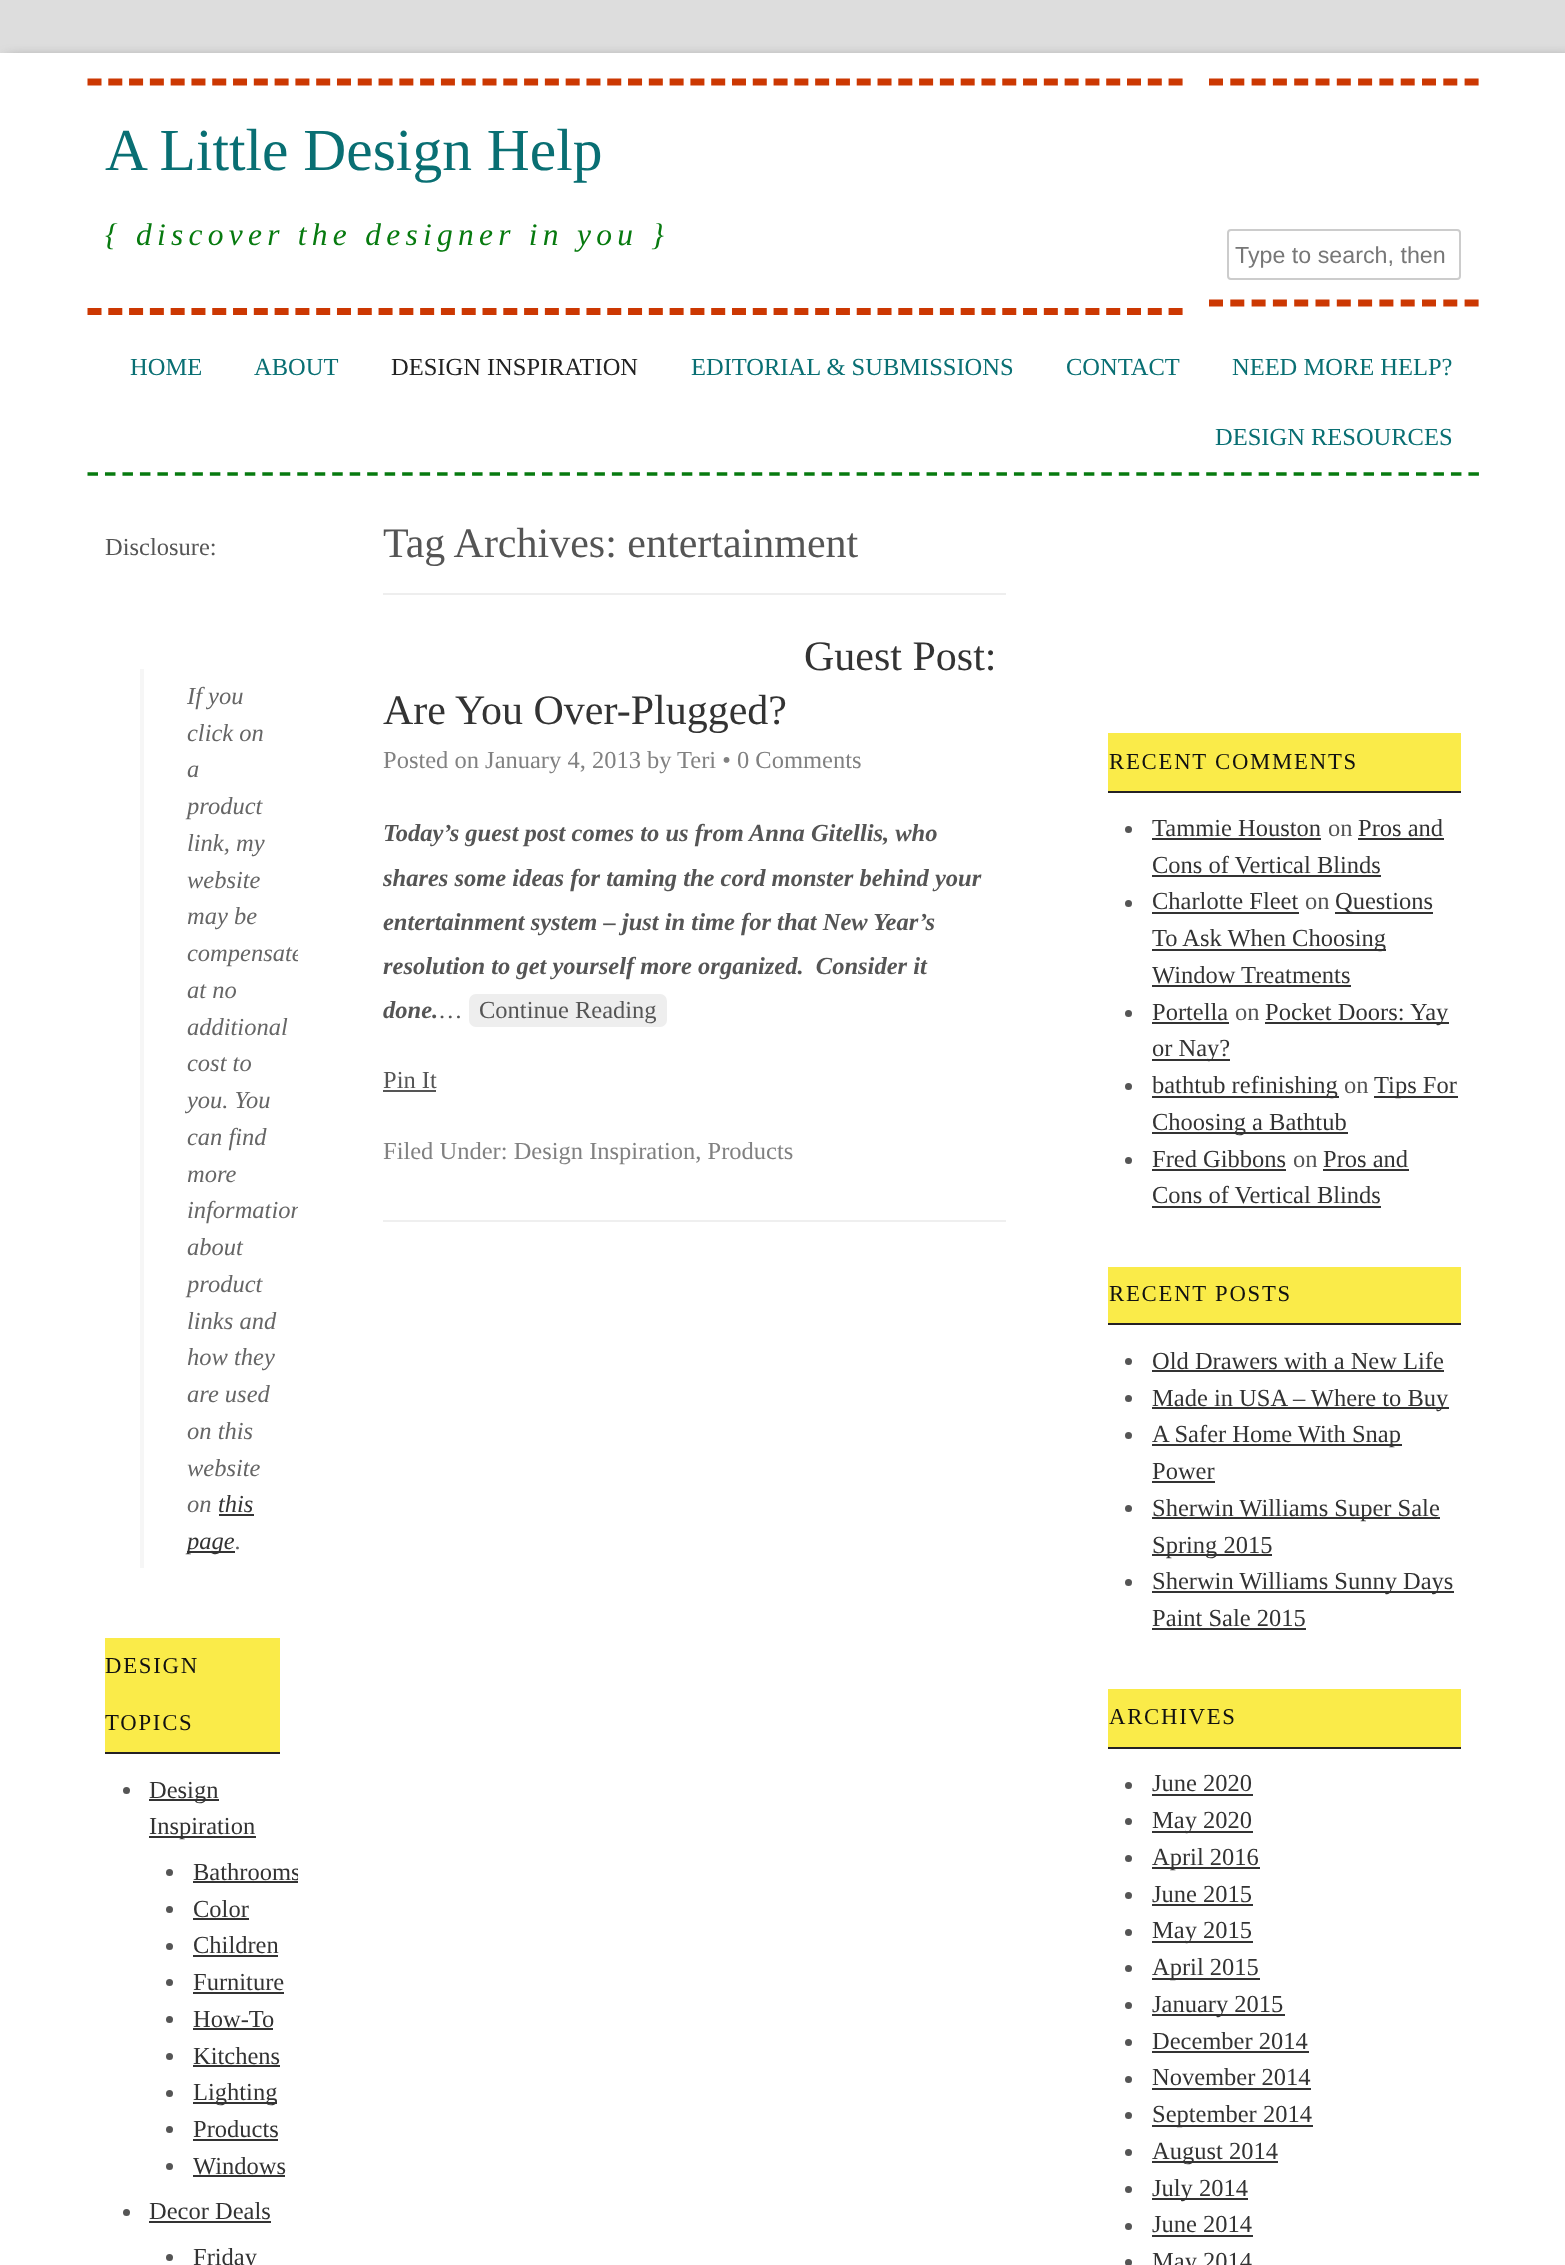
<?xml version="1.0" encoding="UTF-8"?>
<svg xmlns="http://www.w3.org/2000/svg" xmlns:xlink="http://www.w3.org/1999/xlink" width="1565" height="2265">
  <defs>
    <clipPath id="clip1"><rect x="88" y="494" width="210" height="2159" /></clipPath>
    <clipPath id="clip2"><rect x="383" y="494" width="623" height="745" /></clipPath>
  </defs>
  <rect width="100%" height="100%" fill="#dddddd" />
  <rect x="7" y="60" width="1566" height="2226" fill="#5c5c5c" filter="blur(7px)" />
  <rect y="53" width="1565" height="2212" fill="#ffffff" />
  <path d="M 87.5 82 h 1095.5" fill="none" stroke="#cc3802" stroke-width="7" stroke-dasharray="14 6.79" />
  <path d="M 87.5 311.5 h 1095.5" fill="none" stroke="#cc3802" stroke-width="7" stroke-dasharray="14 6.79" />
  <path d="M 1209 82 h 270" fill="none" stroke="#cc3802" stroke-width="7" stroke-dasharray="14 7.3" />
  <path d="M 1209 303 h 270" fill="none" stroke="#cc3802" stroke-width="7" stroke-dasharray="14 7.3" />
  <rect x="1228" y="230" width="232" height="49" rx="3" fill="none" stroke="#cccccc" stroke-width="2" />
  <path d="M 87.5 474 h 1391.5" fill="none" stroke="#077a0f" stroke-width="3.5" stroke-dasharray="10.5 6.98" />
  <rect x="140" y="669" width="4" height="899" fill="#f6f6f6" />
  <rect x="219" y="1514" width="35" height="2" fill="#333333" />
  <rect x="187" y="1551" width="48" height="2" fill="#333333" />
  <rect x="105" y="1638" width="175" height="114" fill="#faeb49" />
  <rect x="105" y="1752" width="175" height="2" fill="#242124" />
  <circle cx="126.5" cy="1790.5" r="3.5" fill="#555555" />
  <rect x="149" y="1799" width="70" height="2" fill="#333333" />
  <rect x="149" y="1836" width="107" height="2" fill="#333333" />
  <circle cx="169.5" cy="1872.5" r="3.5" fill="#555555" />
  <rect x="193" y="1881" width="105" height="2" fill="#333333" />
  <circle cx="169.5" cy="1909.5" r="3.5" fill="#555555" />
  <rect x="193" y="1918" width="56" height="2" fill="#333333" />
  <circle cx="169.5" cy="1946.5" r="3.5" fill="#555555" />
  <rect x="193" y="1955" width="85" height="2" fill="#333333" />
  <circle cx="169.5" cy="1982.5" r="3.5" fill="#555555" />
  <rect x="193" y="1992" width="91" height="2" fill="#333333" />
  <circle cx="169.5" cy="2019.5" r="3.5" fill="#555555" />
  <rect x="193" y="2028" width="80" height="2" fill="#333333" />
  <circle cx="169.5" cy="2056.5" r="3.5" fill="#555555" />
  <rect x="193" y="2065" width="87" height="2" fill="#333333" />
  <circle cx="169.5" cy="2093.5" r="3.5" fill="#555555" />
  <rect x="193" y="2102" width="84" height="2" fill="#333333" />
  <circle cx="169.5" cy="2129.5" r="3.5" fill="#555555" />
  <rect x="193" y="2139" width="85" height="2" fill="#333333" />
  <circle cx="169.5" cy="2166.5" r="3.5" fill="#555555" />
  <rect x="193" y="2175" width="92" height="2" fill="#333333" />
  <circle cx="126.5" cy="2212.5" r="3.5" fill="#555555" />
  <rect x="149" y="2221" width="122" height="2" fill="#333333" />
  <circle cx="169.5" cy="2257.5" r="3.5" fill="#555555" />
  <rect x="383" y="593" width="623" height="2" fill="#eeeeee" />
  <rect x="383" y="1220" width="623" height="2" fill="#efefef" />
  <rect x="469" y="994" width="198" height="33" rx="7" fill="#eeeeee" />
  <rect x="383" y="1090" width="53" height="2" fill="#555555" />
  <rect x="1108" y="733" width="353" height="58" fill="#faeb49" />
  <rect x="1108" y="791" width="353" height="2" fill="#242124" />
  <circle cx="1128.5" cy="829.5" r="3.5" fill="#555555" />
  <rect x="1152" y="838" width="169" height="2" fill="#333333" />
  <rect x="1358" y="838" width="86" height="2" fill="#333333" />
  <rect x="1152" y="875" width="229" height="2" fill="#333333" />
  <circle cx="1128.5" cy="903.5" r="3.5" fill="#555555" />
  <rect x="1152" y="912" width="147" height="2" fill="#333333" />
  <rect x="1335" y="912" width="98" height="2" fill="#333333" />
  <rect x="1152" y="949" width="234" height="2" fill="#333333" />
  <rect x="1152" y="985" width="199" height="2" fill="#333333" />
  <circle cx="1128.5" cy="1013.5" r="3.5" fill="#555555" />
  <rect x="1152" y="1022" width="77" height="2" fill="#333333" />
  <rect x="1265" y="1022" width="184" height="2" fill="#333333" />
  <rect x="1152" y="1059" width="78" height="2" fill="#333333" />
  <circle cx="1128.5" cy="1086.5" r="3.5" fill="#555555" />
  <rect x="1152" y="1096" width="187" height="2" fill="#333333" />
  <rect x="1374" y="1096" width="84" height="2" fill="#333333" />
  <rect x="1152" y="1132" width="196" height="2" fill="#333333" />
  <circle cx="1128.5" cy="1160.5" r="3.5" fill="#555555" />
  <rect x="1152" y="1169" width="134" height="2" fill="#333333" />
  <rect x="1323" y="1169" width="86" height="2" fill="#333333" />
  <rect x="1152" y="1206" width="229" height="2" fill="#333333" />
  <rect x="1108" y="1267" width="353" height="56" fill="#faeb49" />
  <rect x="1108" y="1323" width="353" height="2" fill="#242124" />
  <circle cx="1128.5" cy="1361.5" r="3.5" fill="#555555" />
  <rect x="1152" y="1370" width="292" height="2" fill="#333333" />
  <circle cx="1128.5" cy="1398.5" r="3.5" fill="#555555" />
  <rect x="1152" y="1407" width="297" height="2" fill="#333333" />
  <circle cx="1128.5" cy="1435.5" r="3.5" fill="#555555" />
  <rect x="1152" y="1444" width="250" height="2" fill="#333333" />
  <rect x="1152" y="1481" width="63" height="2" fill="#333333" />
  <circle cx="1128.5" cy="1508.5" r="3.5" fill="#555555" />
  <rect x="1152" y="1517" width="288" height="2" fill="#333333" />
  <rect x="1152" y="1554" width="120" height="2" fill="#333333" />
  <circle cx="1128.5" cy="1582.5" r="3.5" fill="#555555" />
  <rect x="1152" y="1591" width="302" height="2" fill="#333333" />
  <rect x="1152" y="1628" width="154" height="2" fill="#333333" />
  <rect x="1108" y="1689" width="353" height="58" fill="#faeb49" />
  <rect x="1108" y="1747" width="353" height="2" fill="#242124" />
  <circle cx="1128.5" cy="1785.5" r="3.5" fill="#555555" />
  <rect x="1152" y="1794" width="101" height="2" fill="#333333" />
  <circle cx="1128.5" cy="1821.5" r="3.5" fill="#555555" />
  <rect x="1152" y="1831" width="101" height="2" fill="#333333" />
  <circle cx="1128.5" cy="1858.5" r="3.5" fill="#555555" />
  <rect x="1152" y="1867" width="108" height="2" fill="#333333" />
  <circle cx="1128.5" cy="1895.5" r="3.5" fill="#555555" />
  <rect x="1152" y="1904" width="101" height="2" fill="#333333" />
  <circle cx="1128.5" cy="1932.5" r="3.5" fill="#555555" />
  <rect x="1152" y="1941" width="101" height="2" fill="#333333" />
  <circle cx="1128.5" cy="1968.5" r="3.5" fill="#555555" />
  <rect x="1152" y="1978" width="108" height="2" fill="#333333" />
  <circle cx="1128.5" cy="2005.5" r="3.5" fill="#555555" />
  <rect x="1152" y="2014" width="133" height="2" fill="#333333" />
  <circle cx="1128.5" cy="2042.5" r="3.5" fill="#555555" />
  <rect x="1152" y="2051" width="157" height="2" fill="#333333" />
  <circle cx="1128.5" cy="2079.5" r="3.5" fill="#555555" />
  <rect x="1152" y="2088" width="159" height="2" fill="#333333" />
  <circle cx="1128.5" cy="2115.5" r="3.5" fill="#555555" />
  <rect x="1152" y="2125" width="161" height="2" fill="#333333" />
  <circle cx="1128.5" cy="2152.5" r="3.5" fill="#555555" />
  <rect x="1152" y="2161" width="126" height="2" fill="#333333" />
  <circle cx="1128.5" cy="2189.5" r="3.5" fill="#555555" />
  <rect x="1152" y="2198" width="96" height="2" fill="#333333" />
  <circle cx="1128.5" cy="2226.5" r="3.5" fill="#555555" />
  <rect x="1152" y="2235" width="101" height="2" fill="#333333" />
  <circle cx="1128.5" cy="2262.5" r="3.5" fill="#555555" />
  <text x="105" y="170" style="font-family: Liberation Serif; font-size: 59.5px; fill: #096f73">A Little Design Help</text>
  <text x="105" y="245" style="font-family: Liberation Serif; font-size: 31.5px; font-style: italic; letter-spacing: 5.25px; fill: #077a0f">{ discover the designer in you }</text>
  <text x="1235" y="263" style="font-family: Liberation Sans; font-size: 23.25px; fill: #777777">Type to search, then</text>
  <text x="130" y="375" style="font-family: Liberation Serif; font-size: 24.5px; fill: #096f73">HOME</text>
  <text x="254" y="375" style="font-family: Liberation Serif; font-size: 24.5px; fill: #096f73">ABOUT</text>
  <text x="391" y="375" style="font-family: Liberation Serif; font-size: 24.5px; fill: #222222">DESIGN INSPIRATION</text>
  <text x="691" y="375" style="font-family: Liberation Serif; font-size: 24.5px; fill: #096f73">EDITORIAL &amp; SUBMISSIONS</text>
  <text x="1066" y="375" style="font-family: Liberation Serif; font-size: 24.5px; fill: #096f73">CONTACT</text>
  <text x="1232" y="375" style="font-family: Liberation Serif; font-size: 24.5px; fill: #096f73">NEED MORE HELP?</text>
  <text x="1215" y="445" style="font-family: Liberation Serif; font-size: 24.5px; fill: #096f73">DESIGN RESOURCES</text>
  <text x="105" y="555" style="font-family: Liberation Serif; font-size: 24.5px; fill: #555555">Disclosure:</text>
  <text x="187" y="704" style="font-family: Liberation Serif; font-size: 24.5px; font-style: italic; fill: #666666">If you</text>
  <text x="187" y="741" style="font-family: Liberation Serif; font-size: 24.5px; font-style: italic; fill: #666666">click on</text>
  <text x="187" y="777" style="font-family: Liberation Serif; font-size: 24.5px; font-style: italic; fill: #666666">a</text>
  <text x="187" y="814" style="font-family: Liberation Serif; font-size: 24.5px; font-style: italic; fill: #666666">product</text>
  <text x="187" y="851" style="font-family: Liberation Serif; font-size: 24.5px; font-style: italic; fill: #666666">link, my</text>
  <text x="187" y="888" style="font-family: Liberation Serif; font-size: 24.5px; font-style: italic; fill: #666666">website</text>
  <text x="187" y="924" style="font-family: Liberation Serif; font-size: 24.5px; font-style: italic; fill: #666666">may be</text>
  <g clip-path="url(#clip1)">
    <text x="187" y="961" style="font-family: Liberation Serif; font-size: 24.5px; font-style: italic; fill: #666666">compensate</text>
  </g>
  <text x="187" y="998" style="font-family: Liberation Serif; font-size: 24.5px; font-style: italic; fill: #666666">at no</text>
  <text x="187" y="1035" style="font-family: Liberation Serif; font-size: 24.5px; font-style: italic; fill: #666666">additional</text>
  <text x="187" y="1071" style="font-family: Liberation Serif; font-size: 24.5px; font-style: italic; fill: #666666">cost to</text>
  <text x="187" y="1108" style="font-family: Liberation Serif; font-size: 24.5px; font-style: italic; fill: #666666">you. You</text>
  <text x="187" y="1145" style="font-family: Liberation Serif; font-size: 24.5px; font-style: italic; fill: #666666">can find</text>
  <text x="187" y="1182" style="font-family: Liberation Serif; font-size: 24.5px; font-style: italic; fill: #666666">more</text>
  <g clip-path="url(#clip1)">
    <text x="187" y="1218" style="font-family: Liberation Serif; font-size: 24.5px; font-style: italic; fill: #666666">information</text>
  </g>
  <text x="187" y="1255" style="font-family: Liberation Serif; font-size: 24.5px; font-style: italic; fill: #666666">about</text>
  <text x="187" y="1292" style="font-family: Liberation Serif; font-size: 24.5px; font-style: italic; fill: #666666">product</text>
  <text x="187" y="1329" style="font-family: Liberation Serif; font-size: 24.5px; font-style: italic; fill: #666666">links and</text>
  <text x="187" y="1365" style="font-family: Liberation Serif; font-size: 24.5px; font-style: italic; fill: #666666">how they</text>
  <text x="187" y="1402" style="font-family: Liberation Serif; font-size: 24.5px; font-style: italic; fill: #666666">are used</text>
  <text x="187" y="1439" style="font-family: Liberation Serif; font-size: 24.5px; font-style: italic; fill: #666666">on this</text>
  <text x="187" y="1476" style="font-family: Liberation Serif; font-size: 24.5px; font-style: italic; fill: #666666">website</text>
  <text x="187" y="1512" style="font-family: Liberation Serif; font-size: 24.5px; font-style: italic; fill: #666666">on</text>
  <text x="218" y="1512" style="font-family: Liberation Serif; font-size: 24.5px; font-style: italic; fill: #333333">this</text>
  <text x="187" y="1549" style="font-family: Liberation Serif; font-size: 24.5px; font-style: italic; fill: #333333">page</text>
  <text x="235" y="1549" style="font-family: Liberation Serif; font-size: 24.5px; font-style: italic; fill: #666666">.</text>
  <text x="105" y="1673" style="font-family: Liberation Serif; font-size: 22.75px; letter-spacing: 1.75px; fill: #111111">DESIGN</text>
  <text x="105" y="1730" style="font-family: Liberation Serif; font-size: 22.75px; letter-spacing: 1.75px; fill: #111111">TOPICS</text>
  <text x="149" y="1798" style="font-family: Liberation Serif; font-size: 24.5px; fill: #333333">Design</text>
  <text x="149" y="1834" style="font-family: Liberation Serif; font-size: 24.5px; fill: #333333">Inspiration</text>
  <g clip-path="url(#clip1)">
    <text x="193" y="1880" style="font-family: Liberation Serif; font-size: 24.5px; fill: #333333">Bathrooms</text>
  </g>
  <text x="193" y="1917" style="font-family: Liberation Serif; font-size: 24.5px; fill: #333333">Color</text>
  <text x="193" y="1953" style="font-family: Liberation Serif; font-size: 24.5px; fill: #333333">Children</text>
  <text x="193" y="1990" style="font-family: Liberation Serif; font-size: 24.5px; fill: #333333">Furniture</text>
  <text x="193" y="2027" style="font-family: Liberation Serif; font-size: 24.5px; fill: #333333">How-To</text>
  <text x="193" y="2064" style="font-family: Liberation Serif; font-size: 24.5px; fill: #333333">Kitchens</text>
  <text x="193" y="2100" style="font-family: Liberation Serif; font-size: 24.5px; fill: #333333">Lighting</text>
  <text x="193" y="2137" style="font-family: Liberation Serif; font-size: 24.5px; fill: #333333">Products</text>
  <text x="193" y="2174" style="font-family: Liberation Serif; font-size: 24.5px; fill: #333333">Windows</text>
  <text x="149" y="2219" style="font-family: Liberation Serif; font-size: 24.5px; fill: #333333">Decor Deals</text>
  <text x="193" y="2265" style="font-family: Liberation Serif; font-size: 24.5px; fill: #333333">Friday</text>
  <text x="383" y="557" style="font-family: Liberation Serif; font-size: 42px; fill: #555555">Tag Archives: entertainment</text>
  <text x="804" y="670" style="font-family: Liberation Serif; font-size: 42px; fill: #333333">Guest Post:</text>
  <text x="383" y="724" style="font-family: Liberation Serif; font-size: 42px; fill: #333333">Are You Over-Plugged?</text>
  <text x="383" y="768" style="font-family: Liberation Serif; font-size: 24.5px; fill: #818181">Posted on January 4, 2013 by</text>
  <text x="677" y="768" style="font-family: Liberation Serif; font-size: 24.5px; fill: #818181">Teri • 0 Comments</text>
  <text x="383" y="841" style="font-family: Liberation Serif; font-size: 24.5px; font-weight: bold; font-style: italic; fill: #555555">Today’s guest post comes to us from Anna Gitellis, who</text>
  <g clip-path="url(#clip2)">
    <text x="383" y="886" style="font-family: Liberation Serif; font-size: 24.5px; font-weight: bold; font-style: italic; fill: #555555">shares some ideas for taming the cord monster behind your</text>
  </g>
  <text x="383" y="930" style="font-family: Liberation Serif; font-size: 24.5px; font-weight: bold; font-style: italic; fill: #555555">entertainment system – just in time for that New Year’s</text>
  <text x="383" y="974" style="font-family: Liberation Serif; font-size: 24.5px; font-weight: bold; font-style: italic; fill: #555555" xml:space="preserve">resolution to get yourself more organized.  Consider it</text>
  <text x="383" y="1018" style="font-family: Liberation Serif; font-size: 24.5px; font-weight: bold; font-style: italic; fill: #555555">done.</text>
  <text x="438" y="1018" style="font-family: Liberation Serif; font-size: 24.5px; fill: #555555">…</text>
  <text x="479" y="1018" style="font-family: Liberation Serif; font-size: 24.5px; fill: #555555">Continue Reading</text>
  <text x="383" y="1088" style="font-family: Liberation Serif; font-size: 24.5px; fill: #555555">Pin It</text>
  <text x="383" y="1159" style="font-family: Liberation Serif; font-size: 24.5px; fill: #818181">Filed Under: Design Inspiration, Products</text>
  <text x="1109" y="769" style="font-family: Liberation Serif; font-size: 22.75px; letter-spacing: 1.75px; fill: #111111">RECENT COMMENTS</text>
  <text x="1152" y="836" style="font-family: Liberation Serif; font-size: 24.5px; fill: #333333">Tammie Houston</text>
  <text x="1328" y="836" style="font-family: Liberation Serif; font-size: 24.5px; fill: #555555">on</text>
  <text x="1358" y="836" style="font-family: Liberation Serif; font-size: 24.5px; fill: #333333">Pros and</text>
  <text x="1152" y="873" style="font-family: Liberation Serif; font-size: 24.5px; fill: #333333">Cons of Vertical Blinds</text>
  <text x="1152" y="909" style="font-family: Liberation Serif; font-size: 24.5px; fill: #333333">Charlotte Fleet</text>
  <text x="1305" y="909" style="font-family: Liberation Serif; font-size: 24.5px; fill: #555555">on</text>
  <text x="1335" y="909" style="font-family: Liberation Serif; font-size: 24.5px; fill: #333333">Questions</text>
  <text x="1152" y="946" style="font-family: Liberation Serif; font-size: 24.5px; fill: #333333">To Ask When Choosing</text>
  <text x="1152" y="983" style="font-family: Liberation Serif; font-size: 24.5px; fill: #333333">Window Treatments</text>
  <text x="1152" y="1020" style="font-family: Liberation Serif; font-size: 24.5px; fill: #333333">Portella</text>
  <text x="1235" y="1020" style="font-family: Liberation Serif; font-size: 24.5px; fill: #555555">on</text>
  <text x="1265" y="1020" style="font-family: Liberation Serif; font-size: 24.5px; fill: #333333">Pocket Doors:</text>
  <text x="1410" y="1020" style="font-family: Liberation Serif; font-size: 24.5px; fill: #333333">Yay</text>
  <text x="1152" y="1056" style="font-family: Liberation Serif; font-size: 24.5px; fill: #333333">or Nay?</text>
  <text x="1152" y="1093" style="font-family: Liberation Serif; font-size: 24.5px; fill: #333333">bathtub refinishing</text>
  <text x="1344" y="1093" style="font-family: Liberation Serif; font-size: 24.5px; fill: #555555">on</text>
  <text x="1374" y="1093" style="font-family: Liberation Serif; font-size: 24.5px; fill: #333333">Tips For</text>
  <text x="1152" y="1130" style="font-family: Liberation Serif; font-size: 24.5px; fill: #333333">Choosing a Bathtub</text>
  <text x="1152" y="1167" style="font-family: Liberation Serif; font-size: 24.5px; fill: #333333">Fred Gibbons</text>
  <text x="1293" y="1167" style="font-family: Liberation Serif; font-size: 24.5px; fill: #555555">on</text>
  <text x="1323" y="1167" style="font-family: Liberation Serif; font-size: 24.5px; fill: #333333">Pros and</text>
  <text x="1152" y="1203" style="font-family: Liberation Serif; font-size: 24.5px; fill: #333333">Cons of Vertical Blinds</text>
  <text x="1109" y="1301" style="font-family: Liberation Serif; font-size: 22.75px; letter-spacing: 1.75px; fill: #111111">RECENT POSTS</text>
  <text x="1152" y="1369" style="font-family: Liberation Serif; font-size: 24.5px; fill: #333333">Old Drawers with a New Life</text>
  <text x="1152" y="1406" style="font-family: Liberation Serif; font-size: 24.5px; fill: #333333">Made in USA – Where to Buy</text>
  <text x="1152" y="1442" style="font-family: Liberation Serif; font-size: 24.5px; fill: #333333">A Safer Home With Snap</text>
  <text x="1152" y="1479" style="font-family: Liberation Serif; font-size: 24.5px; fill: #333333">Power</text>
  <text x="1152" y="1516" style="font-family: Liberation Serif; font-size: 24.5px; fill: #333333">Sherwin Williams Super Sale</text>
  <text x="1152" y="1553" style="font-family: Liberation Serif; font-size: 24.5px; fill: #333333">Spring 2015</text>
  <text x="1152" y="1589" style="font-family: Liberation Serif; font-size: 24.5px; fill: #333333">Sherwin Williams Sunny Days</text>
  <text x="1152" y="1626" style="font-family: Liberation Serif; font-size: 24.5px; fill: #333333">Paint Sale 2015</text>
  <text x="1109" y="1724" style="font-family: Liberation Serif; font-size: 22.75px; letter-spacing: 1.75px; fill: #111111">ARCHIVES</text>
  <text x="1152" y="1791" style="font-family: Liberation Serif; font-size: 24.5px; fill: #333333">June 2020</text>
  <text x="1152" y="1828" style="font-family: Liberation Serif; font-size: 24.5px; fill: #333333">May 2020</text>
  <text x="1152" y="1865" style="font-family: Liberation Serif; font-size: 24.5px; fill: #333333">April 2016</text>
  <text x="1152" y="1902" style="font-family: Liberation Serif; font-size: 24.5px; fill: #333333">June 2015</text>
  <text x="1152" y="1938" style="font-family: Liberation Serif; font-size: 24.5px; fill: #333333">May 2015</text>
  <text x="1152" y="1975" style="font-family: Liberation Serif; font-size: 24.5px; fill: #333333">April 2015</text>
  <text x="1152" y="2012" style="font-family: Liberation Serif; font-size: 24.5px; fill: #333333">January 2015</text>
  <text x="1152" y="2049" style="font-family: Liberation Serif; font-size: 24.5px; fill: #333333">December 2014</text>
  <text x="1152" y="2085" style="font-family: Liberation Serif; font-size: 24.5px; fill: #333333">November 2014</text>
  <text x="1152" y="2122" style="font-family: Liberation Serif; font-size: 24.5px; fill: #333333">September 2014</text>
  <text x="1152" y="2159" style="font-family: Liberation Serif; font-size: 24.5px; fill: #333333">August 2014</text>
  <text x="1152" y="2196" style="font-family: Liberation Serif; font-size: 24.5px; fill: #333333">July 2014</text>
  <text x="1152" y="2232" style="font-family: Liberation Serif; font-size: 24.5px; fill: #333333">June 2014</text>
  <text x="1152" y="2269" style="font-family: Liberation Serif; font-size: 24.5px; fill: #333333">May 2014</text>
</svg>
